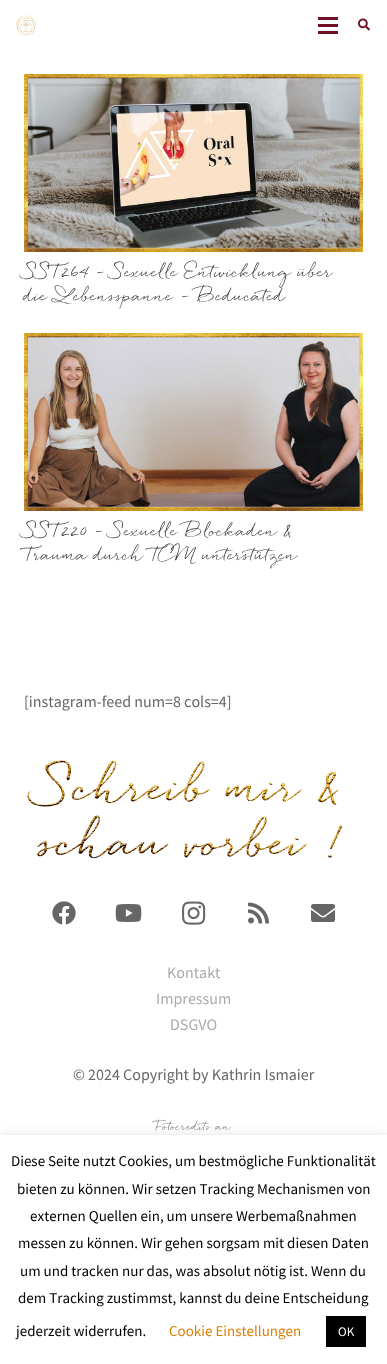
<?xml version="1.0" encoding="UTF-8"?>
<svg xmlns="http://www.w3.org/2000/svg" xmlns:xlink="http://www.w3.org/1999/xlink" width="387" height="1364">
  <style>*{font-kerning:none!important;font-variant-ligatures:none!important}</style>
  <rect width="100%" height="100%" fill="#ffffff" />
  <image x="16" y="15" width="20" height="20" xlink:href="image1.png" />
  <rect x="318" y="24" width="20" height="3" fill="#6e1124" />
  <rect x="318" y="17" width="20" height="3" fill="#6e1124" />
  <rect x="318" y="31" width="20" height="3" fill="#6e1124" />
  <image x="358" y="18" width="12" height="13" xlink:href="image2.png" />
  <image x="24" y="74" width="339" height="178" xlink:href="image3.png" />
  <image x="24" y="333" width="339" height="178" xlink:href="image4.png" />
  <image x="27" y="760" width="316" height="99" xlink:href="image5.png" />
  <image x="52" y="901" width="24" height="24" xlink:href="image6.png" />
  <image x="115" y="904" width="27" height="18" xlink:href="image7.png" />
  <image x="182" y="901" width="24" height="24" xlink:href="image8.png" />
  <image x="248" y="902" width="21" height="22" xlink:href="image9.png" />
  <image x="311" y="904" width="24" height="18" xlink:href="image10.png" />
  <rect y="1134" width="387" height="229" fill="#acabab" fill-opacity="0.3" filter="blur(5px)" />
  <rect y="1135" width="387" height="229" fill="#ffffff" />
  <rect x="326" y="1316" width="40" height="31" fill="#000000" />
  <text x="24" y="277" word-spacing="-0.5" style="font-family: 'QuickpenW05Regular'; font-size: 16px; fill: #333333">SST264 – Sexuelle Entwicklung über</text>
  <text x="24" y="301" style="font-family: 'QuickpenW05Regular'; font-size: 16px; fill: #333333">die Lebensspanne – Beducated</text>
  <text x="24" y="536" style="font-family: 'QuickpenW05Regular'; font-size: 16px; fill: #333333">SST220 – Sexuelle Blockaden &amp;</text>
  <text x="24" y="560" word-spacing="-0.5" style="font-family: 'QuickpenW05Regular'; font-size: 16px; fill: #333333">Trauma durch TCM unterstützen</text>
  <text x="24" y="707" style="font-family: Source Sans Pro; font-size: 16px; fill: #666666">[instagram-feed num=8 cols=4]</text>
  <text x="167" y="978" style="font-family: Source Sans Pro; font-size: 16px; fill: #aaaaaa">Kontakt</text>
  <text x="156" y="1004" style="font-family: Source Sans Pro; font-size: 16px; fill: #aaaaaa">Impressum</text>
  <text x="170" y="1030" style="font-family: Source Sans Pro; font-size: 16px; fill: #aaaaaa">DSGVO</text>
  <text x="73" y="1080" style="font-family: Source Sans Pro; font-size: 16px; fill: #666666">© 2024 Copyright by Kathrin Ismaier</text>
  <text x="155" y="1130" style="font-family: 'QuickpenW05Regular'; font-size: 11px; fill: #666666">Fotocredits an</text>
  <text x="11" y="1166" style="font-family: Source Sans Pro; font-size: 15px; fill: #000000">Diese Seite nutzt Cookies, um bestmögliche Funktionalität</text>
  <text x="17" y="1194" style="font-family: Source Sans Pro; font-size: 15px; fill: #000000">bieten zu können. Wir setzen Tracking Mechanismen von</text>
  <text x="30" y="1221" style="font-family: Source Sans Pro; font-size: 15px; fill: #000000">externen Quellen ein, um unsere Werbemaßnahmen</text>
  <text x="18" y="1248" style="font-family: Source Sans Pro; font-size: 15px; fill: #000000">messen zu können. Wir gehen sorgsam mit diesen Daten</text>
  <text x="20" y="1276" style="font-family: Source Sans Pro; font-size: 15px; fill: #000000">um und tracken nur das, was absolut nötig ist. Wenn du</text>
  <text x="18" y="1303" style="font-family: Source Sans Pro; font-size: 15px; fill: #000000">dem Tracking zustimmst, kannst du deine Entscheidung</text>
  <text x="16" y="1336" style="font-family: Source Sans Pro; font-size: 15px; fill: #000000">jederzeit widerrufen.</text>
  <text x="169" y="1336" style="font-family: Source Sans Pro; font-size: 15px; fill: #dc7e00">Cookie Einstellungen</text>
  <text x="338" y="1336" style="font-family: Source Sans Pro; font-size: 13px; fill: #ffffff">OK</text>
</svg>
